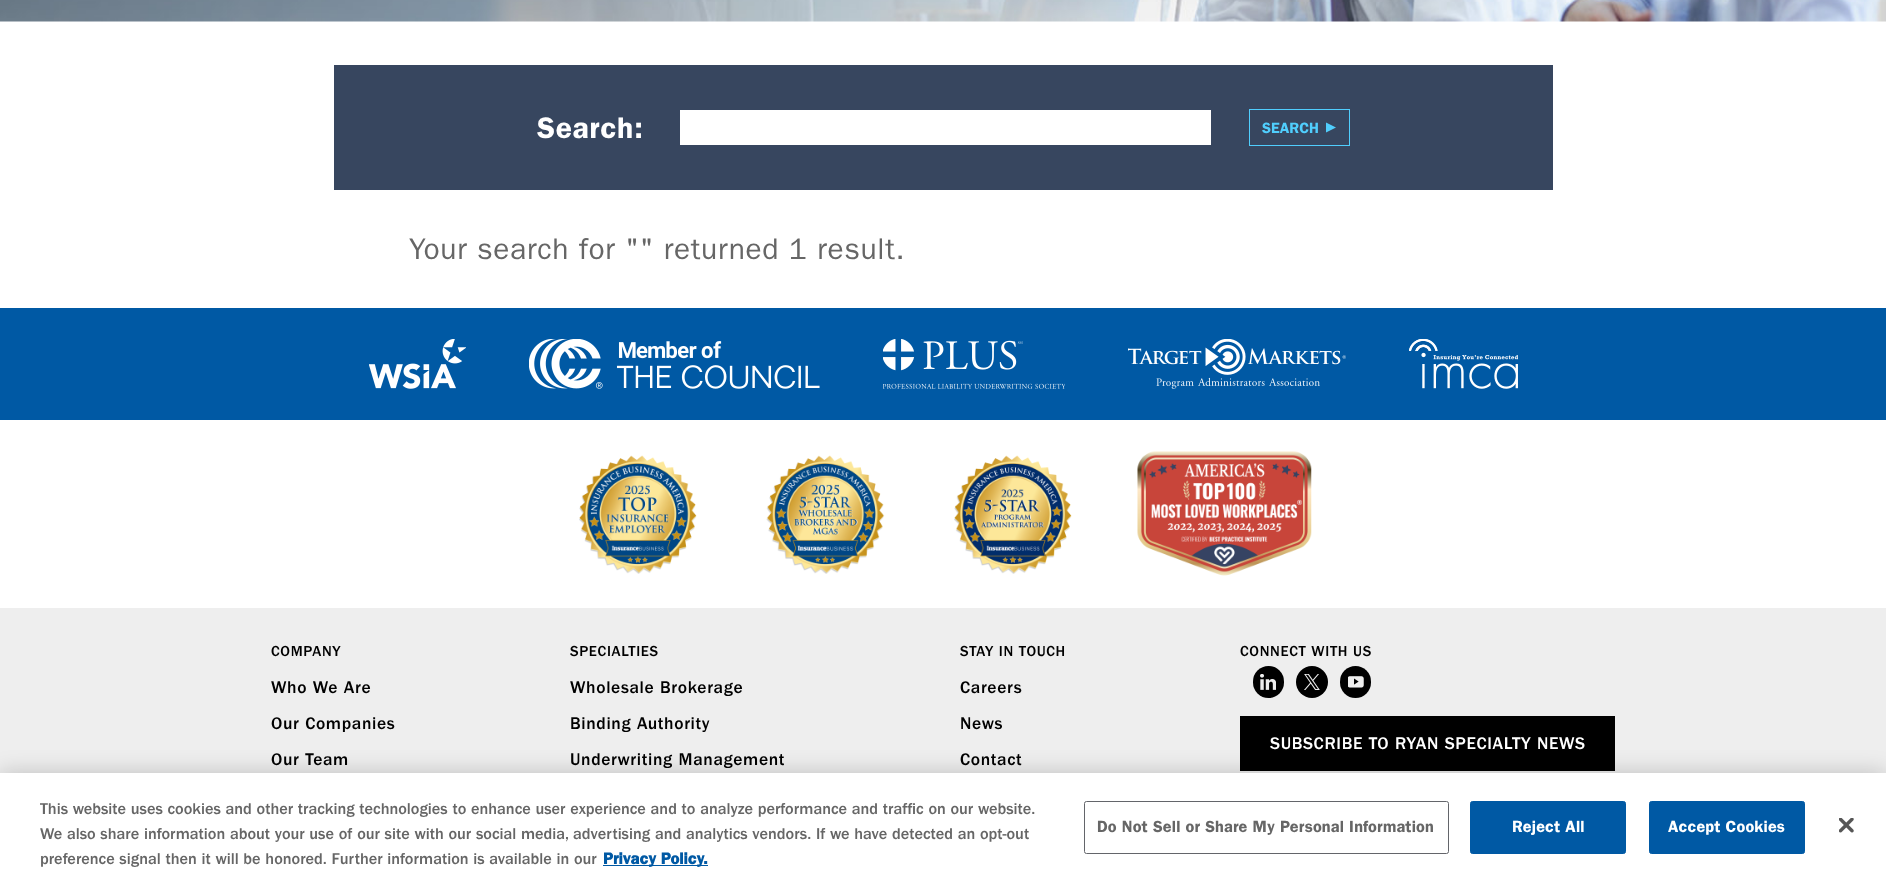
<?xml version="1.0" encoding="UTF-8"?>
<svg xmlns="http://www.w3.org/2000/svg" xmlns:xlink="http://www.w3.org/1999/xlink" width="1886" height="884">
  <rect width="100%" height="100%" fill="#ffffff" />
  <image x="0" y="0" width="1886" height="22" xlink:href="image1.png" />
  <rect x="334" y="65" width="1219" height="125" fill="#37465f" />
  <rect x="680" y="110" width="531" height="35" fill="#ffffff" />
  <rect x="1249.5" y="109.5" width="100" height="36" fill="none" stroke="#50cefd" />
  <path d="M 1326 132.5 v -10 l 10 5 z" fill="#50cefd" />
  <rect y="308" width="1886" height="112" fill="#0059a4" />
  <image x="369" y="339" width="97" height="50" xlink:href="image2.png" />
  <image x="529" y="339" width="291" height="50" xlink:href="image3.png" />
  <image x="883" y="339" width="182" height="50" xlink:href="image4.png" />
  <image x="1128" y="339" width="218" height="50" xlink:href="image5.png" />
  <image x="1409" y="339" width="109" height="50" xlink:href="image6.png" />
  <image x="579" y="455" width="118" height="119" xlink:href="image7.png" />
  <image x="766" y="455" width="119" height="119" xlink:href="image8.png" />
  <image x="954" y="455" width="118" height="119" xlink:href="image9.png" />
  <image x="1137" y="451" width="175" height="125" xlink:href="image10.png" />
  <rect y="608" width="1886" height="165" fill="#eeeeee" />
  <rect x="1253" y="666" width="31" height="32" rx="15.5" fill="#000000" />
  <image x="1260" y="674" width="16" height="16" xlink:href="image11.png" />
  <circle cx="1312" cy="682" r="16" fill="#000000" />
  <image x="1304" y="674" width="16" height="16" xlink:href="image12.png" />
  <rect x="1340" y="666" width="31" height="32" rx="15.5" fill="#000000" />
  <image x="1348" y="676" width="16" height="12" xlink:href="image13.png" />
  <rect x="1240" y="716" width="375" height="55" fill="#000000" />
  <rect y="773" width="1886" height="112" fill="#000000" fill-opacity="0.2" filter="blur(11px)" />
  <rect y="773" width="1886" height="111" fill="#ffffff" />
  <rect x="603" y="865" width="105" height="1" fill="#0059a4" />
  <rect x="1084.5" y="801.5" width="364" height="52" rx="2" fill="none" stroke="#63656a" />
  <rect x="1470.5" y="801.5" width="155" height="52" rx="2" fill="#0059a4" stroke="#0059a4" />
  <rect x="1649.5" y="801.5" width="155" height="52" rx="2" fill="#0059a4" stroke="#0059a4" />
  <image x="1839" y="818" width="15" height="15" xlink:href="image14.png" />
  <text x="537" y="138" style="font-family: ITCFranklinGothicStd; font-size: 30px; letter-spacing: 0.65px; fill: #ffffff">Search:</text>
  <text x="1262" y="133" style="font-family: ITCFranklinGothicStd; font-size: 15px; fill: #50cefd">SEARCH</text>
  <text x="409" y="259" style="font-family: 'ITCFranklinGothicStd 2'; font-size: 30px; letter-spacing: 0.65px; fill: #666666">Your search for "" returned 1 result.</text>
  <text x="271" y="656" style="font-family: 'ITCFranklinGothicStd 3'; font-size: 15px; letter-spacing: 0.65px; fill: #000000">COMPANY</text>
  <text x="271" y="693" style="font-family: 'ITCFranklinGothicStd 3'; font-size: 17.5px; letter-spacing: 0.65px; fill: #000000">Who We Are</text>
  <text x="271" y="729" style="font-family: 'ITCFranklinGothicStd 3'; font-size: 17.5px; letter-spacing: 0.65px; fill: #000000">Our Companies</text>
  <text x="271" y="765" style="font-family: 'ITCFranklinGothicStd 3'; font-size: 17.5px; letter-spacing: 0.65px; fill: #000000">Our Team</text>
  <text x="570" y="656" style="font-family: 'ITCFranklinGothicStd 3'; font-size: 15px; letter-spacing: 0.65px; fill: #000000">SPECIALTIES</text>
  <text x="570" y="693" style="font-family: 'ITCFranklinGothicStd 3'; font-size: 17.5px; letter-spacing: 0.65px; fill: #000000">Wholesale Brokerage</text>
  <text x="570" y="729" style="font-family: 'ITCFranklinGothicStd 3'; font-size: 17.5px; letter-spacing: 0.65px; fill: #000000">Binding Authority</text>
  <text x="570" y="765" style="font-family: 'ITCFranklinGothicStd 3'; font-size: 17.5px; letter-spacing: 0.65px; fill: #000000">Underwriting Management</text>
  <text x="960" y="656" style="font-family: 'ITCFranklinGothicStd 3'; font-size: 15px; letter-spacing: 0.65px; fill: #000000">STAY IN TOUCH</text>
  <text x="960" y="693" style="font-family: 'ITCFranklinGothicStd 3'; font-size: 17.5px; letter-spacing: 0.65px; fill: #000000">Careers</text>
  <text x="960" y="729" style="font-family: 'ITCFranklinGothicStd 3'; font-size: 17.5px; letter-spacing: 0.65px; fill: #000000">News</text>
  <text x="960" y="765" style="font-family: 'ITCFranklinGothicStd 3'; font-size: 17.5px; letter-spacing: 0.65px; fill: #000000">Contact</text>
  <text x="1240" y="656" style="font-family: 'ITCFranklinGothicStd 3'; font-size: 15px; letter-spacing: 0.65px; fill: #000000">CONNECT WITH US</text>
  <text x="1270" y="749" style="font-family: 'ITCFranklinGothicStd 3'; font-size: 17.5px; letter-spacing: 0.65px; fill: #ffffff">SUBSCRIBE TO RYAN SPECIALTY NEWS</text>
  <text x="40" y="814" style="font-family: 'ITCFranklinGothicStd 3'; font-size: 16.25px; fill: #666666">This website uses cookies and other tracking technologies to enhance user experience and to analyze performance and traffic on our website.</text>
  <text x="40" y="839" style="font-family: 'ITCFranklinGothicStd 3'; font-size: 16.25px; fill: #666666">We also share information about your use of our site with our social media, advertising and analytics vendors. If we have detected an opt-out</text>
  <text x="40" y="864" style="font-family: 'ITCFranklinGothicStd 3'; font-size: 16.25px; fill: #666666">preference signal then it will be honored. Further information is available in our</text>
  <text x="603" y="864" style="font-family: ITCFranklinGothicStd; font-size: 16.25px; font-weight: bold; fill: #0059a4">Privacy Policy.</text>
  <text x="1097" y="832" style="font-family: ITCFranklinGothicStd; font-size: 16.25px; letter-spacing: 0.15px; fill: #666666">Do Not Sell or Share My Personal Information</text>
  <text x="1512" y="832" style="font-family: ITCFranklinGothicStd; font-size: 16.25px; letter-spacing: 0.15px; fill: #ffffff">Reject All</text>
  <text x="1668" y="832" style="font-family: ITCFranklinGothicStd; font-size: 16.25px; letter-spacing: 0.15px; fill: #ffffff">Accept Cookies</text>
</svg>
